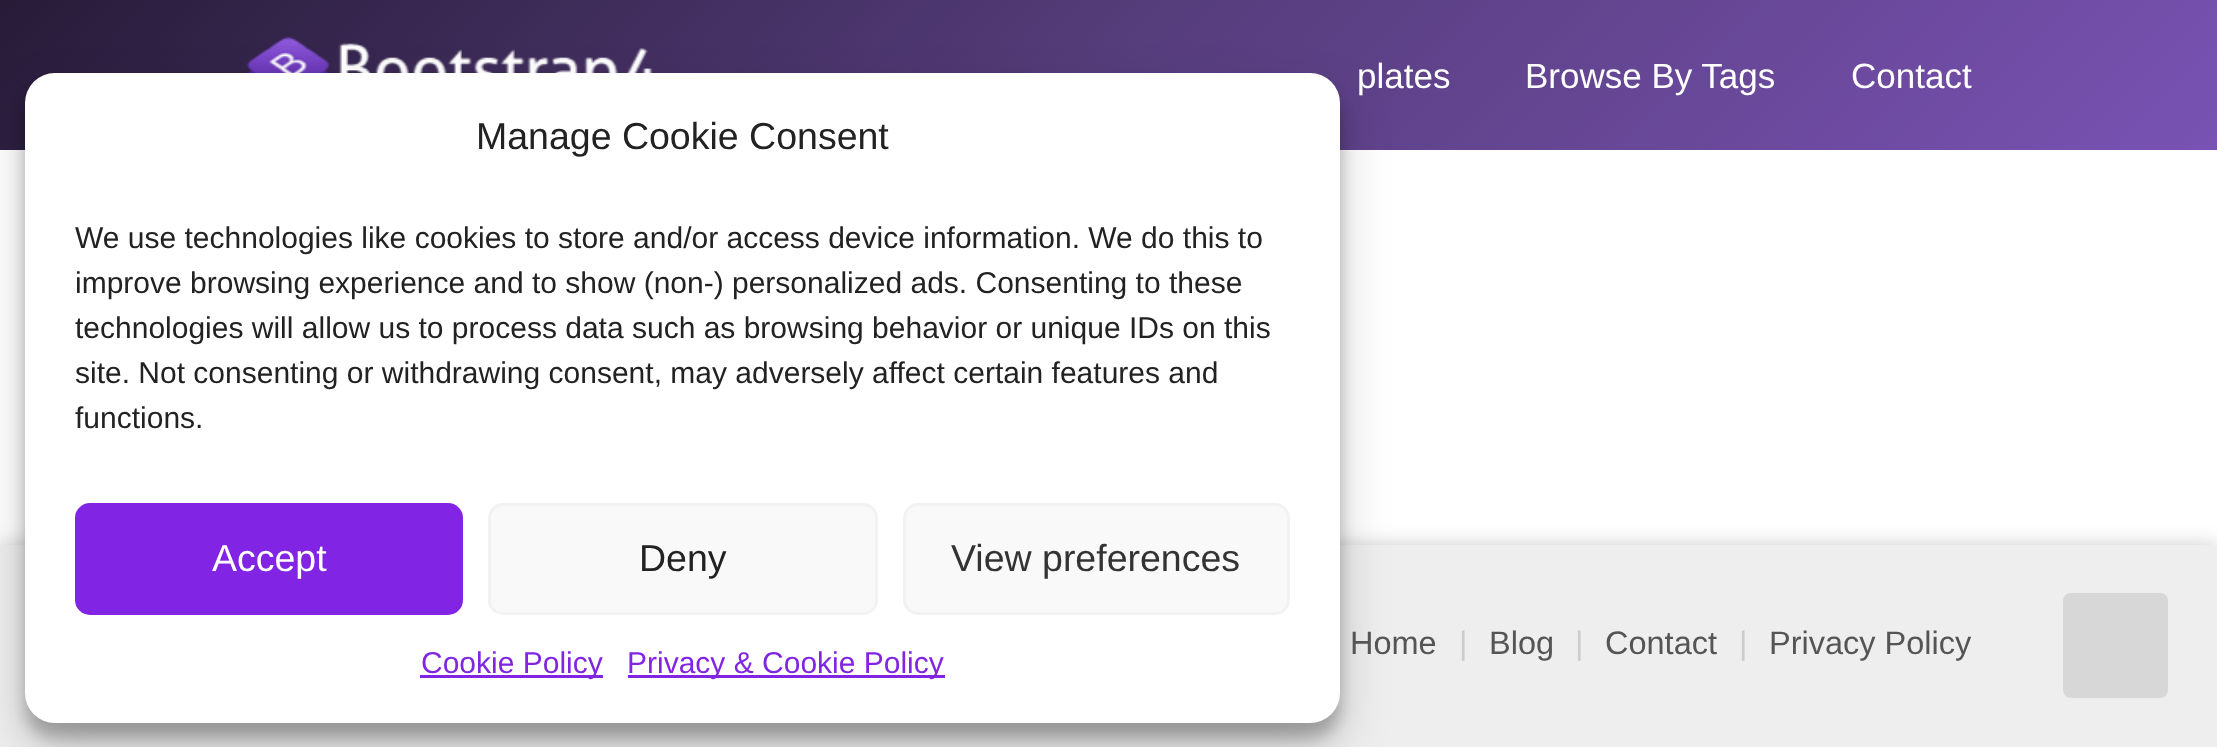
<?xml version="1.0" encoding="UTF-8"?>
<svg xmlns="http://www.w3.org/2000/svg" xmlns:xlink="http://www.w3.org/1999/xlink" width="2217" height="747">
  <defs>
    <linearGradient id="g1" gradientUnits="userSpaceOnUse" x1="517" y1="-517" x2="1701" y2="667"><stop offset="0" stop-color="#271b38" /><stop offset="0.5" stop-color="#563d7c" /><stop offset="1" stop-color="#7952b3" /></linearGradient>
  </defs>
  <rect width="100%" height="100%" fill="#ffffff" />
  <rect width="2217" height="150" fill="url(#g1)" />
  <image x="246" y="37" width="407" height="36" xlink:href="image1.png" />
  <rect y="545" width="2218" height="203" fill="#000000" fill-opacity="0.2" filter="blur(10px)" />
  <rect y="545" width="2217" height="202" fill="#eeeeee" />
  <rect x="25" y="88" width="1315" height="650" rx="30" fill="#000000" fill-opacity="0.23" filter="blur(7.5px)" />
  <rect x="25" y="98" width="1315" height="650" rx="30" fill="#000000" fill-opacity="0.19" filter="blur(25px)" />
  <rect x="25" y="73" width="1315" height="650" rx="30" fill="#ffffff" />
  <rect x="76.5" y="504.5" width="385" height="109" rx="13.5" fill="#8224e3" stroke="#8224e3" stroke-width="3" />
  <rect x="489.5" y="504.5" width="387" height="109" rx="13.5" fill="#f9f9f9" stroke="#f2f2f2" stroke-width="3" />
  <rect x="904.5" y="504.5" width="384" height="109" rx="13.5" fill="#f9f9f9" stroke="#f2f2f2" stroke-width="3" />
  <rect x="420" y="675" width="183" height="3" fill="#8224e3" />
  <rect x="628" y="675" width="317" height="3" fill="#8224e3" />
  <rect x="2063" y="593" width="105" height="105" rx="8" fill="#d7d7d7" />
  <text x="1357" y="88" style="font-family: Liberation Sans; font-size: 35px; fill: #ffffff">plates</text>
  <text x="1525" y="88" style="font-family: Liberation Sans; font-size: 35px; fill: #ffffff">Browse By Tags</text>
  <text x="1851" y="88" style="font-family: Liberation Sans; font-size: 35px; fill: #ffffff">Contact</text>
  <text x="476" y="149" style="font-family: Liberation Sans; font-size: 37.5px; fill: #222222">Manage Cookie Consent</text>
  <text x="75" y="248" style="font-family: Liberation Sans; font-size: 30px; fill: #222222">We use technologies like cookies to store and/or access device information. We do this to</text>
  <text x="75" y="293" style="font-family: Liberation Sans; font-size: 30px; fill: #222222">improve browsing experience and to show (non-) personalized ads. Consenting to these</text>
  <text x="75" y="338" style="font-family: Liberation Sans; font-size: 30px; fill: #222222">technologies will allow us to process data such as browsing behavior or unique IDs on this</text>
  <text x="75" y="383" style="font-family: Liberation Sans; font-size: 30px; fill: #222222">site. Not consenting or withdrawing consent, may adversely affect certain features and</text>
  <text x="75" y="428" style="font-family: Liberation Sans; font-size: 30px; fill: #222222">functions.</text>
  <text x="212" y="571" style="font-family: Liberation Sans; font-size: 37.5px; fill: #ffffff">Accept</text>
  <text x="639" y="571" style="font-family: Liberation Sans; font-size: 37.5px; fill: #222222">Deny</text>
  <text x="951" y="571" style="font-family: Liberation Sans; font-size: 37.5px; fill: #333333">View preferences</text>
  <text x="421" y="673" style="font-family: Liberation Sans; font-size: 30px; fill: #8224e3">Cookie Policy</text>
  <text x="627" y="673" style="font-family: Liberation Sans; font-size: 30px; fill: #8224e3">Privacy &amp; Cookie Policy</text>
  <text x="1350" y="654" style="font-family: Liberation Sans; font-size: 32.5px; fill: #555555">Home</text>
  <text x="1459" y="654" style="font-family: Liberation Sans; font-size: 32.5px; fill: #cccccc">|</text>
  <text x="1489" y="654" style="font-family: Liberation Sans; font-size: 32.5px; fill: #555555">Blog</text>
  <text x="1575" y="654" style="font-family: Liberation Sans; font-size: 32.5px; fill: #cccccc">|</text>
  <text x="1605" y="654" style="font-family: Liberation Sans; font-size: 32.5px; fill: #555555">Contact</text>
  <text x="1739" y="654" style="font-family: Liberation Sans; font-size: 32.5px; fill: #cccccc">|</text>
  <text x="1769" y="654" style="font-family: Liberation Sans; font-size: 32.5px; fill: #555555">Privacy Policy</text>
</svg>
